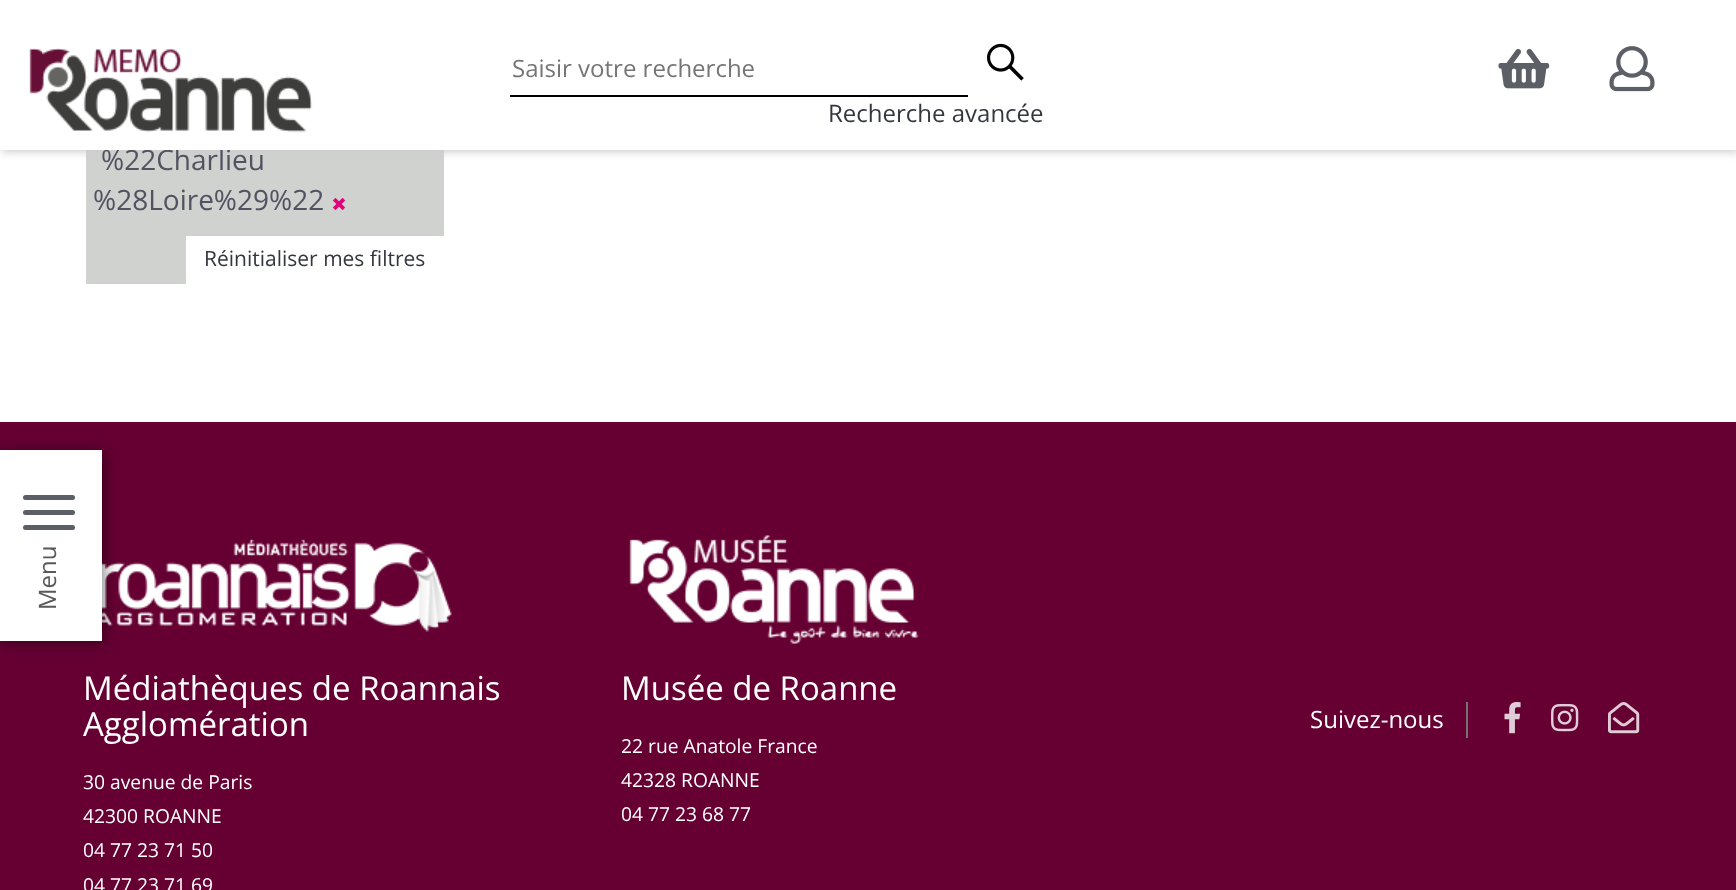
<?xml version="1.0" encoding="UTF-8"?>
<svg xmlns="http://www.w3.org/2000/svg" xmlns:xlink="http://www.w3.org/1999/xlink" width="1736" height="890">
  <rect width="100%" height="100%" fill="#ffffff" />
  <rect x="86" y="150" width="358" height="134" fill="#d0d2d0" />
  <rect x="2" y="2" width="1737" height="150" fill="#cccccc" filter="blur(4px)" />
  <image x="332" y="197" width="14" height="14" xlink:href="image5.png" />
  <rect x="186" y="236" width="258" height="48" fill="#ffffff" />
  <rect y="422" width="1736" height="468" fill="#660033" />
  <image x="102" y="539" width="350" height="93" xlink:href="image6.png" />
  <rect x="2" y="452" width="102" height="190" fill="#000000" fill-opacity="0.5" filter="blur(7.5px)" />
  <rect y="450" width="102" height="191" fill="#ffffff" />
  <rect x="23" y="495" width="52" height="5" rx="2.5" fill="#5d5f66" />
  <rect x="23" y="510" width="52" height="5" rx="2.5" fill="#5d5f66" />
  <rect x="23" y="525" width="52" height="5" rx="2.5" fill="#5d5f66" />
  <image x="629" y="535" width="290" height="109" xlink:href="image7.png" />
  <rect x="1466" y="702" width="2" height="36" fill="#737373" />
  <image x="1504" y="702" width="17" height="32" xlink:href="image8.png" />
  <image x="1551" y="703" width="28" height="29" xlink:href="image9.png" />
  <image x="1608" y="702" width="32" height="32" xlink:href="image10.png" />
  <text x="101" y="170" style="font-family: Open Sans; font-size: 28px; fill: #525261">%22Charlieu</text>
  <rect width="1736" height="150" fill="#ffffff" />
  <image x="1609" y="46" width="46" height="46" xlink:href="image4.png" />
  <image x="1498" y="48" width="52" height="41" xlink:href="image3.png" />
  <image x="987" y="43" width="37" height="38" xlink:href="image2.png" />
  <text x="512" y="77" style="font-family: Open Sans; font-size: 24px; fill: #757575">Saisir votre recherche</text>
  <rect x="510" y="95" width="458" height="2" fill="#000000" />
  <text x="828" y="122" style="font-family: Open Sans; font-size: 24px; fill: #353740">Recherche avancée</text>
  <image x="29" y="48" width="284" height="85" xlink:href="image1.png" />
  <text x="93" y="210" style="font-family: Open Sans; font-size: 28px; fill: #525261">%28Loire%29%22</text>
  <text x="204" y="266" style="font-family: Open Sans; font-size: 21px; fill: #353740">Réinitialiser mes filtres</text>
  <text x="56" y="610" transform="rotate(-90 56 610)" style="font-family: Open Sans; font-size: 24px; fill: #595959">Menu</text>
  <text x="83" y="700" style="font-family: Open Sans; font-size: 33px; fill: #ffffff">Médiathèques de Roannais</text>
  <text x="83" y="736" style="font-family: Open Sans; font-size: 33px; fill: #ffffff">Agglomération</text>
  <text x="83" y="789" style="font-family: Open Sans; font-size: 19.25px; fill: #ffffff">30 avenue de Paris</text>
  <text x="83" y="823" style="font-family: Open Sans; font-size: 19.25px; fill: #ffffff">42300 ROANNE</text>
  <text x="83" y="857" style="font-family: Open Sans; font-size: 19.25px; fill: #ffffff">04 77 23 71 50</text>
  <text x="83" y="892" style="font-family: Open Sans; font-size: 19.25px; fill: #ffffff">04 77 23 71 69</text>
  <text x="621" y="700" style="font-family: Open Sans; font-size: 33px; fill: #ffffff">Musée de Roanne</text>
  <text x="621" y="753" style="font-family: Open Sans; font-size: 19.25px; fill: #ffffff">22 rue Anatole France</text>
  <text x="621" y="787" style="font-family: Open Sans; font-size: 19.25px; fill: #ffffff">42328 ROANNE</text>
  <text x="621" y="821" style="font-family: Open Sans; font-size: 19.25px; fill: #ffffff">04 77 23 68 77</text>
  <text x="1310" y="728" style="font-family: Open Sans; font-size: 24px; fill: #ffffff">Suivez-nous</text>
</svg>
